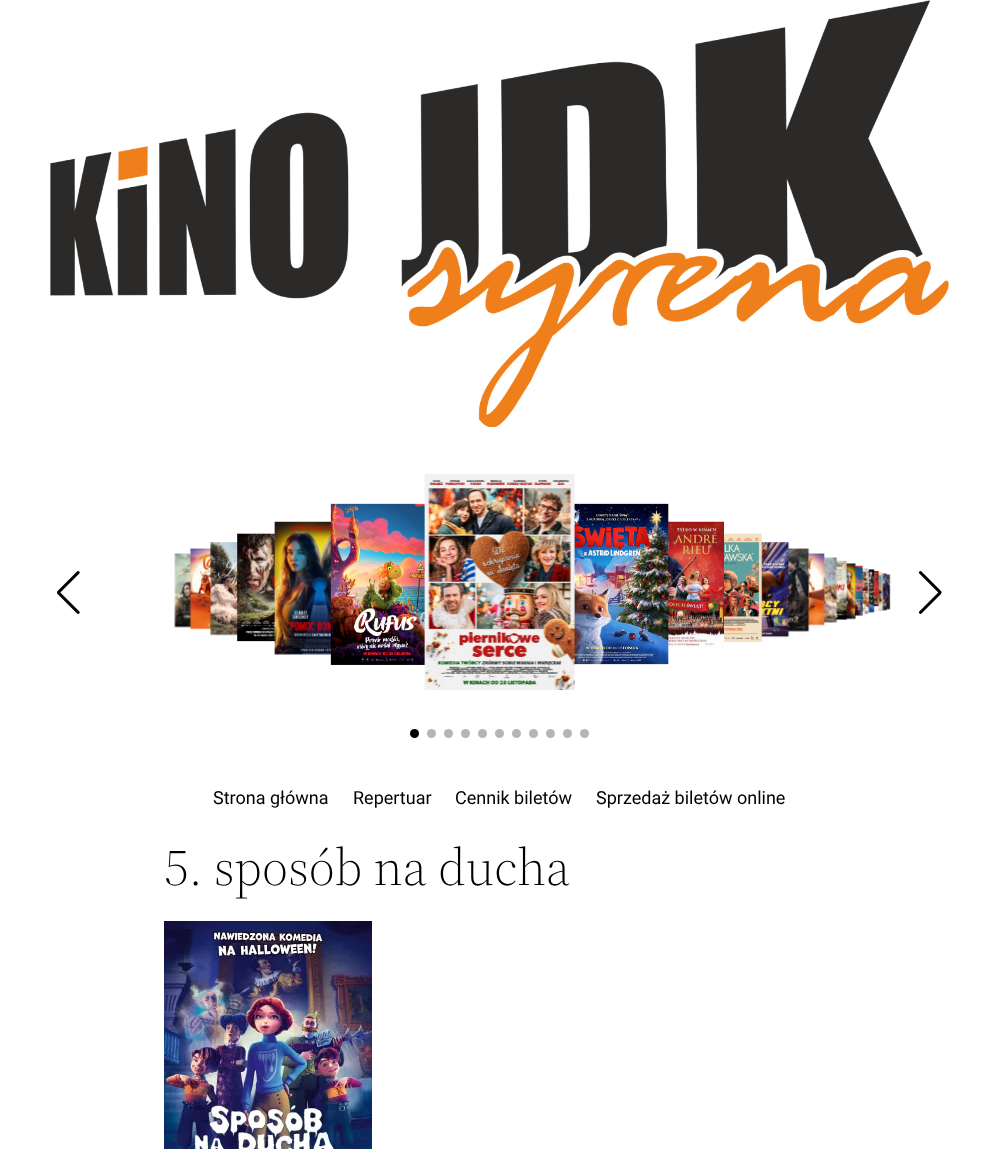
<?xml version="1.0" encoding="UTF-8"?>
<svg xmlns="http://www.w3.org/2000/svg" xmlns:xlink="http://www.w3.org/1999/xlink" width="999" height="1149">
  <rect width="100%" height="100%" fill="#ffffff" />
  <image x="50" y="0" width="899" height="427" xlink:href="image1.png" />
  <image x="57" y="571" width="23" height="43" xlink:href="image2.png" />
  <image x="174" y="553" width="18" height="75" xlink:href="image3.png" />
  <image x="190" y="548" width="22" height="82" xlink:href="image4.png" />
  <image x="210" y="542" width="28" height="94" xlink:href="image5.png" />
  <image x="237" y="533" width="38" height="109" xlink:href="image6.png" />
  <image x="274" y="521" width="57" height="134" xlink:href="image7.png" />
  <image x="330" y="503" width="95" height="162" xlink:href="image8.png" />
  <image x="668" y="521" width="56" height="128" xlink:href="image11.png" />
  <image x="574" y="503" width="95" height="162" xlink:href="image10.png" />
  <image x="424" y="474" width="151" height="216" xlink:href="image9.png" />
  <image x="882" y="574" width="9" height="36" xlink:href="image25.png" />
  <image x="873" y="573" width="14" height="38" xlink:href="image24.png" />
  <image x="873" y="572" width="11" height="39" xlink:href="image23.png" />
  <image x="873" y="570" width="7" height="41" xlink:href="image22.png" />
  <image x="868" y="569" width="7" height="44" xlink:href="image21.png" />
  <image x="854" y="568" width="16" height="47" xlink:href="image20.png" />
  <image x="854" y="565" width="9" height="51" xlink:href="image19.png" />
  <image x="836" y="563" width="20" height="57" xlink:href="image18.png" />
  <image x="836" y="560" width="11" height="60" xlink:href="image17.png" />
  <image x="823" y="557" width="15" height="66" xlink:href="image16.png" />
  <image x="808" y="553" width="17" height="73" xlink:href="image15.png" />
  <image x="788" y="548" width="22" height="84" xlink:href="image14.png" />
  <image x="761" y="542" width="29" height="96" xlink:href="image13.png" />
  <image x="724" y="533" width="39" height="109" xlink:href="image12.png" />
  <image x="918" y="571" width="24" height="43" xlink:href="image26.png" />
  <circle cx="414.5" cy="733.5" r="4.5" fill="#000000" />
  <circle cx="431.5" cy="733.5" r="4.5" fill="#b5b5b5" />
  <circle cx="448.5" cy="733.5" r="4.5" fill="#b5b5b5" />
  <circle cx="465.5" cy="733.5" r="4.5" fill="#b5b5b5" />
  <circle cx="482.5" cy="733.5" r="4.5" fill="#b5b5b5" />
  <circle cx="499.5" cy="733.5" r="4.5" fill="#b5b5b5" />
  <circle cx="516.5" cy="733.5" r="4.5" fill="#b5b5b5" />
  <circle cx="533.5" cy="733.5" r="4.5" fill="#b5b5b5" />
  <circle cx="550.5" cy="733.5" r="4.5" fill="#b5b5b5" />
  <circle cx="567.5" cy="733.5" r="4.5" fill="#b5b5b5" />
  <circle cx="584.5" cy="733.5" r="4.5" fill="#b5b5b5" />
  <image x="164" y="921" width="208" height="228" xlink:href="image27.png" />
  <text x="213" y="804" style="font-family: Roboto; font-size: 18px; fill: #000000">Strona główna</text>
  <text x="353" y="804" style="font-family: Roboto; font-size: 18px; fill: #000000">Repertuar</text>
  <text x="455" y="804" style="font-family: Roboto; font-size: 18px; fill: #000000">Cennik biletów</text>
  <text x="596" y="804" style="font-family: Roboto; font-size: 18px; fill: #000000">Sprzedaż biletów online</text>
  <text x="164" y="885" style="font-family: 'Source Serif 4'; font-size: 52px; font-weight: 300; fill: #000000">5. sposób na ducha</text>
</svg>
